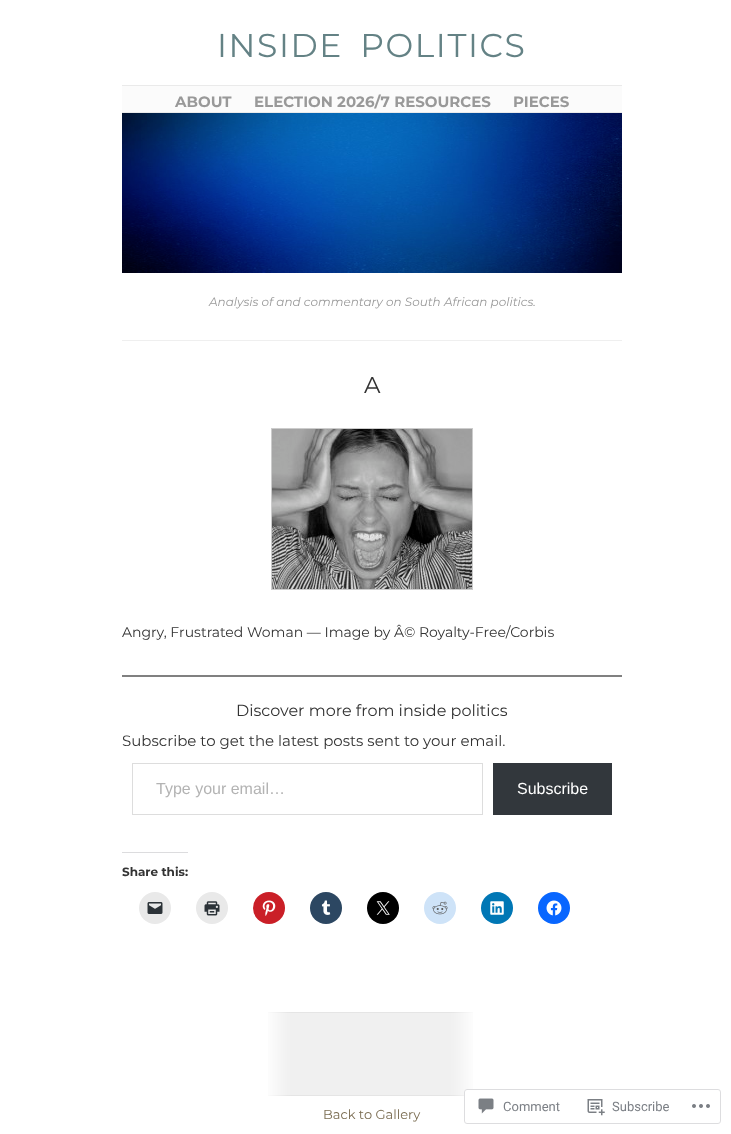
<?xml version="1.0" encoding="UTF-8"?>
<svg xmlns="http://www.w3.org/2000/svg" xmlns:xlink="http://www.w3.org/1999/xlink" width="731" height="1134">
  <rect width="100%" height="100%" fill="#ffffff" />
  <rect x="122" y="86" width="500" height="26" fill="#fbfbfb" />
  <rect x="122" y="85" width="500" height="1" fill="#eaeaea" />
  <rect x="122" y="112" width="500" height="1" fill="#eaeaea" />
  <image x="122" y="113" width="500" height="160" xlink:href="image1.png" />
  <rect x="122" y="340" width="500" height="1" fill="#efefef" />
  <rect x="271.5" y="428.5" width="201" height="161" fill="none" stroke="#cccccc" />
  <image x="272" y="429" width="200" height="160" xlink:href="image2.png" />
  <rect x="122" y="675" width="500" height="2" fill="#808080" />
  <rect x="132.5" y="763.5" width="350" height="51" fill="none" stroke="#dddddd" />
  <rect x="493" y="763" width="119" height="52" fill="#32373c" />
  <rect x="122" y="852" width="66" height="1" fill="#dcdcde" />
  <circle cx="155" cy="908" r="16" fill="#e9e9e9" />
  <image x="147" y="902" width="16" height="12" xlink:href="image3.png" />
  <circle cx="212" cy="908" r="16" fill="#e9e9e9" />
  <image x="204" y="901" width="16" height="15" xlink:href="image4.png" />
  <circle cx="269" cy="908" r="16" fill="#ca1f27" />
  <image x="262" y="900" width="14" height="16" xlink:href="image5.png" />
  <circle cx="326" cy="908" r="16" fill="#2c4762" />
  <image x="321" y="900" width="10" height="15" xlink:href="image6.png" />
  <circle cx="383" cy="908" r="16" fill="#000000" />
  <image x="376" y="901" width="14" height="14" xlink:href="image7.png" />
  <circle cx="440" cy="908" r="16" fill="#cee3f8" />
  <image x="432" y="901" width="16" height="14" xlink:href="image8.png" />
  <circle cx="497" cy="908" r="16" fill="#0077b5" />
  <image x="490" y="901" width="14" height="14" xlink:href="image9.png" />
  <circle cx="554" cy="908" r="16" fill="#0866ff" />
  <image x="546" y="900" width="16" height="16" xlink:href="image10.png" />
  <image x="268" y="1012" width="205" height="84" xlink:href="image11.png" />
  <rect x="464" y="1089" width="257" height="35" rx="3" fill="#ffffff" fill-opacity="0.98" />
  <rect x="464.5" y="1089.5" width="256" height="34" rx="2.5" fill="none" stroke="#dcdcde" stroke-opacity="0.98" />
  <image x="478" y="1098" width="16" height="16" xlink:href="image12.png" />
  <image x="587" y="1099" width="18" height="17" xlink:href="image13.png" />
  <image x="692" y="1104" width="18" height="4" xlink:href="image14.png" />
  <text x="217" y="57" word-spacing="7" style="font-family: Montserrat; font-size: 33px; letter-spacing: 1.6px; fill: #648285">INSIDE POLITICS</text>
  <text x="175" y="107" style="font-family: Montserrat; font-size: 15px; font-weight: bold; fill: #999999">ABOUT</text>
  <text x="254" y="107" style="font-family: Montserrat; font-size: 15px; font-weight: bold; fill: #999999">ELECTION 2026/7 RESOURCES</text>
  <text x="513" y="107" style="font-family: Montserrat; font-size: 15px; font-weight: bold; fill: #999999">PIECES</text>
  <text x="209" y="306" style="font-family: Montserrat; font-size: 12px; font-style: italic; fill: #999999">Analysis of and commentary on South African politics.</text>
  <text x="364" y="393" style="font-family: Montserrat; font-size: 23px; fill: #333333">A</text>
  <text x="122" y="637" style="font-family: Montserrat; font-size: 14px; fill: #333333">Angry, Frustrated Woman — Image by Â© Royalty-Free/Corbis</text>
  <text x="236" y="716" style="font-family: Montserrat; font-size: 16px; fill: #333333">Discover more from inside politics</text>
  <text x="122" y="746" style="font-family: Montserrat; font-size: 15px; fill: #333333">Subscribe to get the latest posts sent to your email.</text>
  <text x="156" y="794" style="font-family: Liberation Sans; font-size: 16px; fill: #b3b3b3">Type your email…</text>
  <text x="517" y="794" style="font-family: Liberation Sans; font-size: 16px; fill: #ffffff">Subscribe</text>
  <text x="122" y="876" style="font-family: Montserrat; font-size: 12px; font-weight: bold; fill: #333333">Share this:</text>
  <text x="323" y="1119" style="font-family: Montserrat; font-size: 13px; fill: #7a6c51">Back to Gallery</text>
  <text x="503" y="1111" style="font-family: Roboto; font-size: 13px; fill: #7b7f85">Comment</text>
  <text x="612" y="1111" style="font-family: Roboto; font-size: 13px; fill: #7b7f85">Subscribe</text>
</svg>
